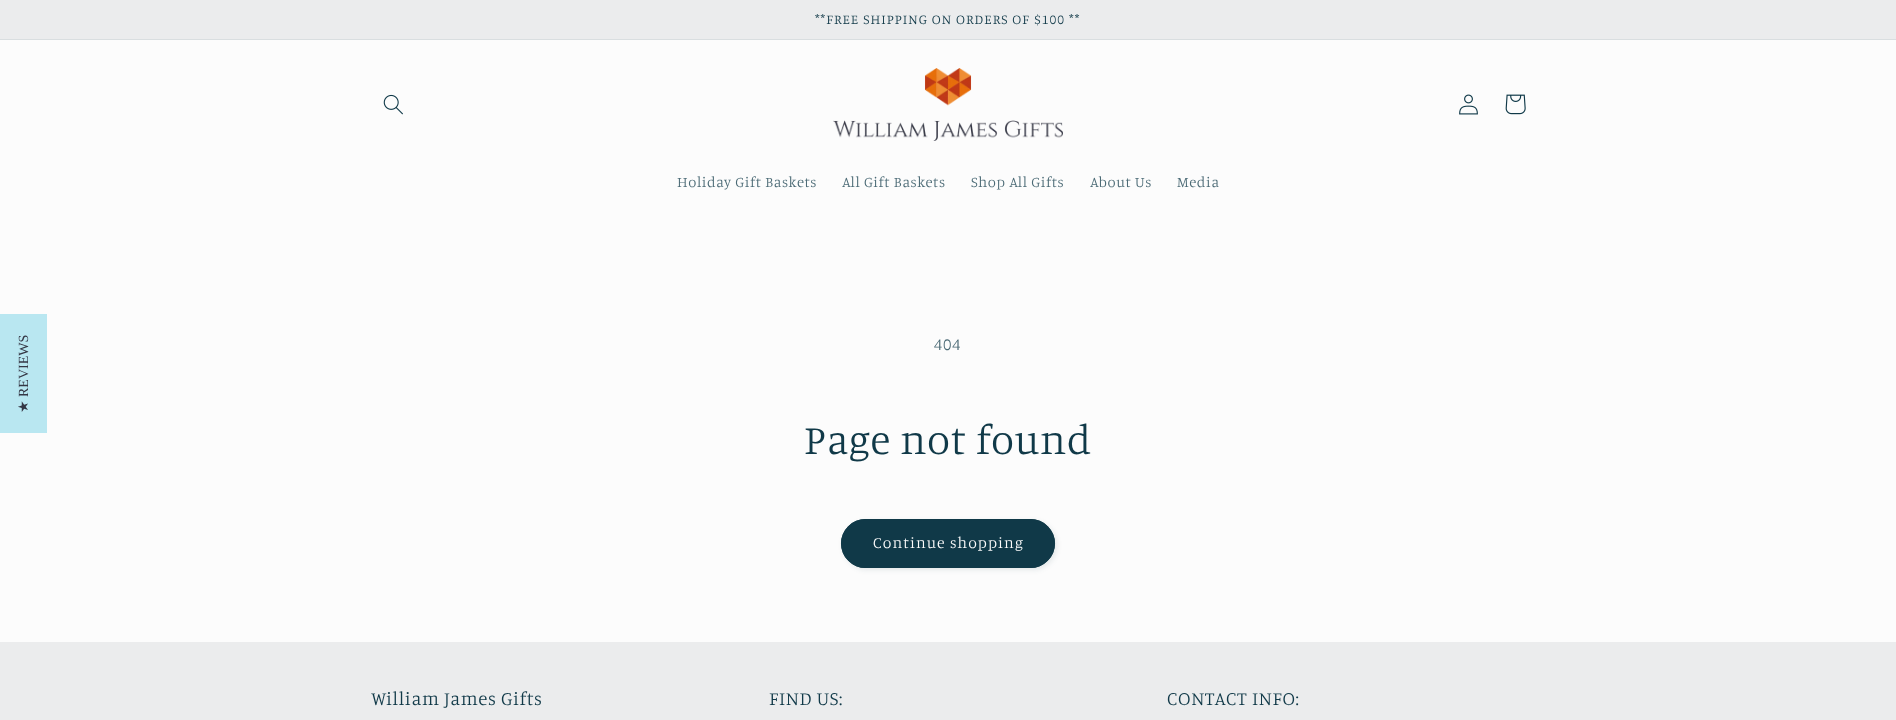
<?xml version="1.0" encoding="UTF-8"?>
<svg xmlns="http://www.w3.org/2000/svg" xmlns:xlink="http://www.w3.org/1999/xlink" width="1896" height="720">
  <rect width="100%" height="100%" fill="#fcfcfc" />
  <rect width="1896" height="39" fill="#ebeced" />
  <rect y="39" width="1896" height="1" fill="#d9dee0" />
  <image x="383" y="94" width="20" height="21" xlink:href="image1.png" />
  <image x="833" y="68" width="230" height="73" xlink:href="image2.png" />
  <image x="1459" y="94" width="19" height="21" xlink:href="image3.png" />
  <image x="1505" y="94" width="21" height="21" xlink:href="image4.png" />
  <rect y="314" width="47" height="119" fill="#b9e7f1" />
  <rect x="843" y="521" width="214" height="49" rx="24.5" fill="#103948" fill-opacity="0.1" filter="blur(2.5px)" />
  <rect x="841" y="519" width="214" height="49" rx="24.5" fill="#103948" />
  <rect x="841.5" y="519.5" width="213" height="48" rx="24" fill="none" stroke="#103948" />
  <rect y="642" width="1896" height="78" fill="#ebeced" />
  <text x="815" y="24" style="font-family: Manuale; font-size: 13.6px; font-weight: 300; letter-spacing: 1.05px; fill: #103948">**FREE SHIPPING ON ORDERS OF $100 **</text>
  <text x="677" y="187" style="font-family: Manuale; font-size: 14.75px; font-weight: 300; letter-spacing: 0.6px; fill: #4b6a75">Holiday Gift Baskets</text>
  <text x="842" y="187" style="font-family: Manuale; font-size: 14.75px; font-weight: 300; letter-spacing: 0.6px; fill: #4b6a75">All Gift Baskets</text>
  <text x="971" y="187" style="font-family: Manuale; font-size: 14.75px; font-weight: 300; letter-spacing: 0.6px; fill: #4b6a75">Shop All Gifts</text>
  <text x="1090" y="187" style="font-family: Manuale; font-size: 14.75px; font-weight: 300; letter-spacing: 0.6px; fill: #4b6a75">About Us</text>
  <text x="1177" y="187" style="font-family: Manuale; font-size: 14.75px; font-weight: 300; letter-spacing: 0.6px; fill: #4b6a75">Media</text>
  <text x="28" y="397" transform="rotate(-90 28 397)" style="font-family: Liberation Serif; font-size: 14px; fill: #353745">REVIEWS</text>
  <text x="28" y="413" transform="rotate(-90 28 413)" style="font-family: DejaVu Sans; font-size: 14px; fill: #353745">★</text>
  <text x="934" y="350" style="font-family: Manuale; font-size: 17px; font-weight: 300; letter-spacing: 0.6px; fill: #4b6a75">404</text>
  <text x="804" y="454" style="font-family: Manuale; font-size: 42px; font-weight: 300; letter-spacing: 0.6px; fill: #103948">Page not found</text>
  <text x="873" y="548" style="font-family: Manuale; font-size: 15.75px; font-weight: 300; letter-spacing: 1.05px; fill: #fcfcfc">Continue shopping</text>
  <text x="371" y="705" style="font-family: Manuale; font-size: 19px; font-weight: 300; letter-spacing: 0.6px; fill: #103948">William James Gifts</text>
  <text x="769" y="705" style="font-family: Manuale; font-size: 19px; font-weight: 300; letter-spacing: 0.6px; fill: #103948">FIND US:</text>
  <text x="1167" y="705" style="font-family: Manuale; font-size: 19px; font-weight: 300; letter-spacing: 0.6px; fill: #103948">CONTACT INFO:</text>
</svg>
